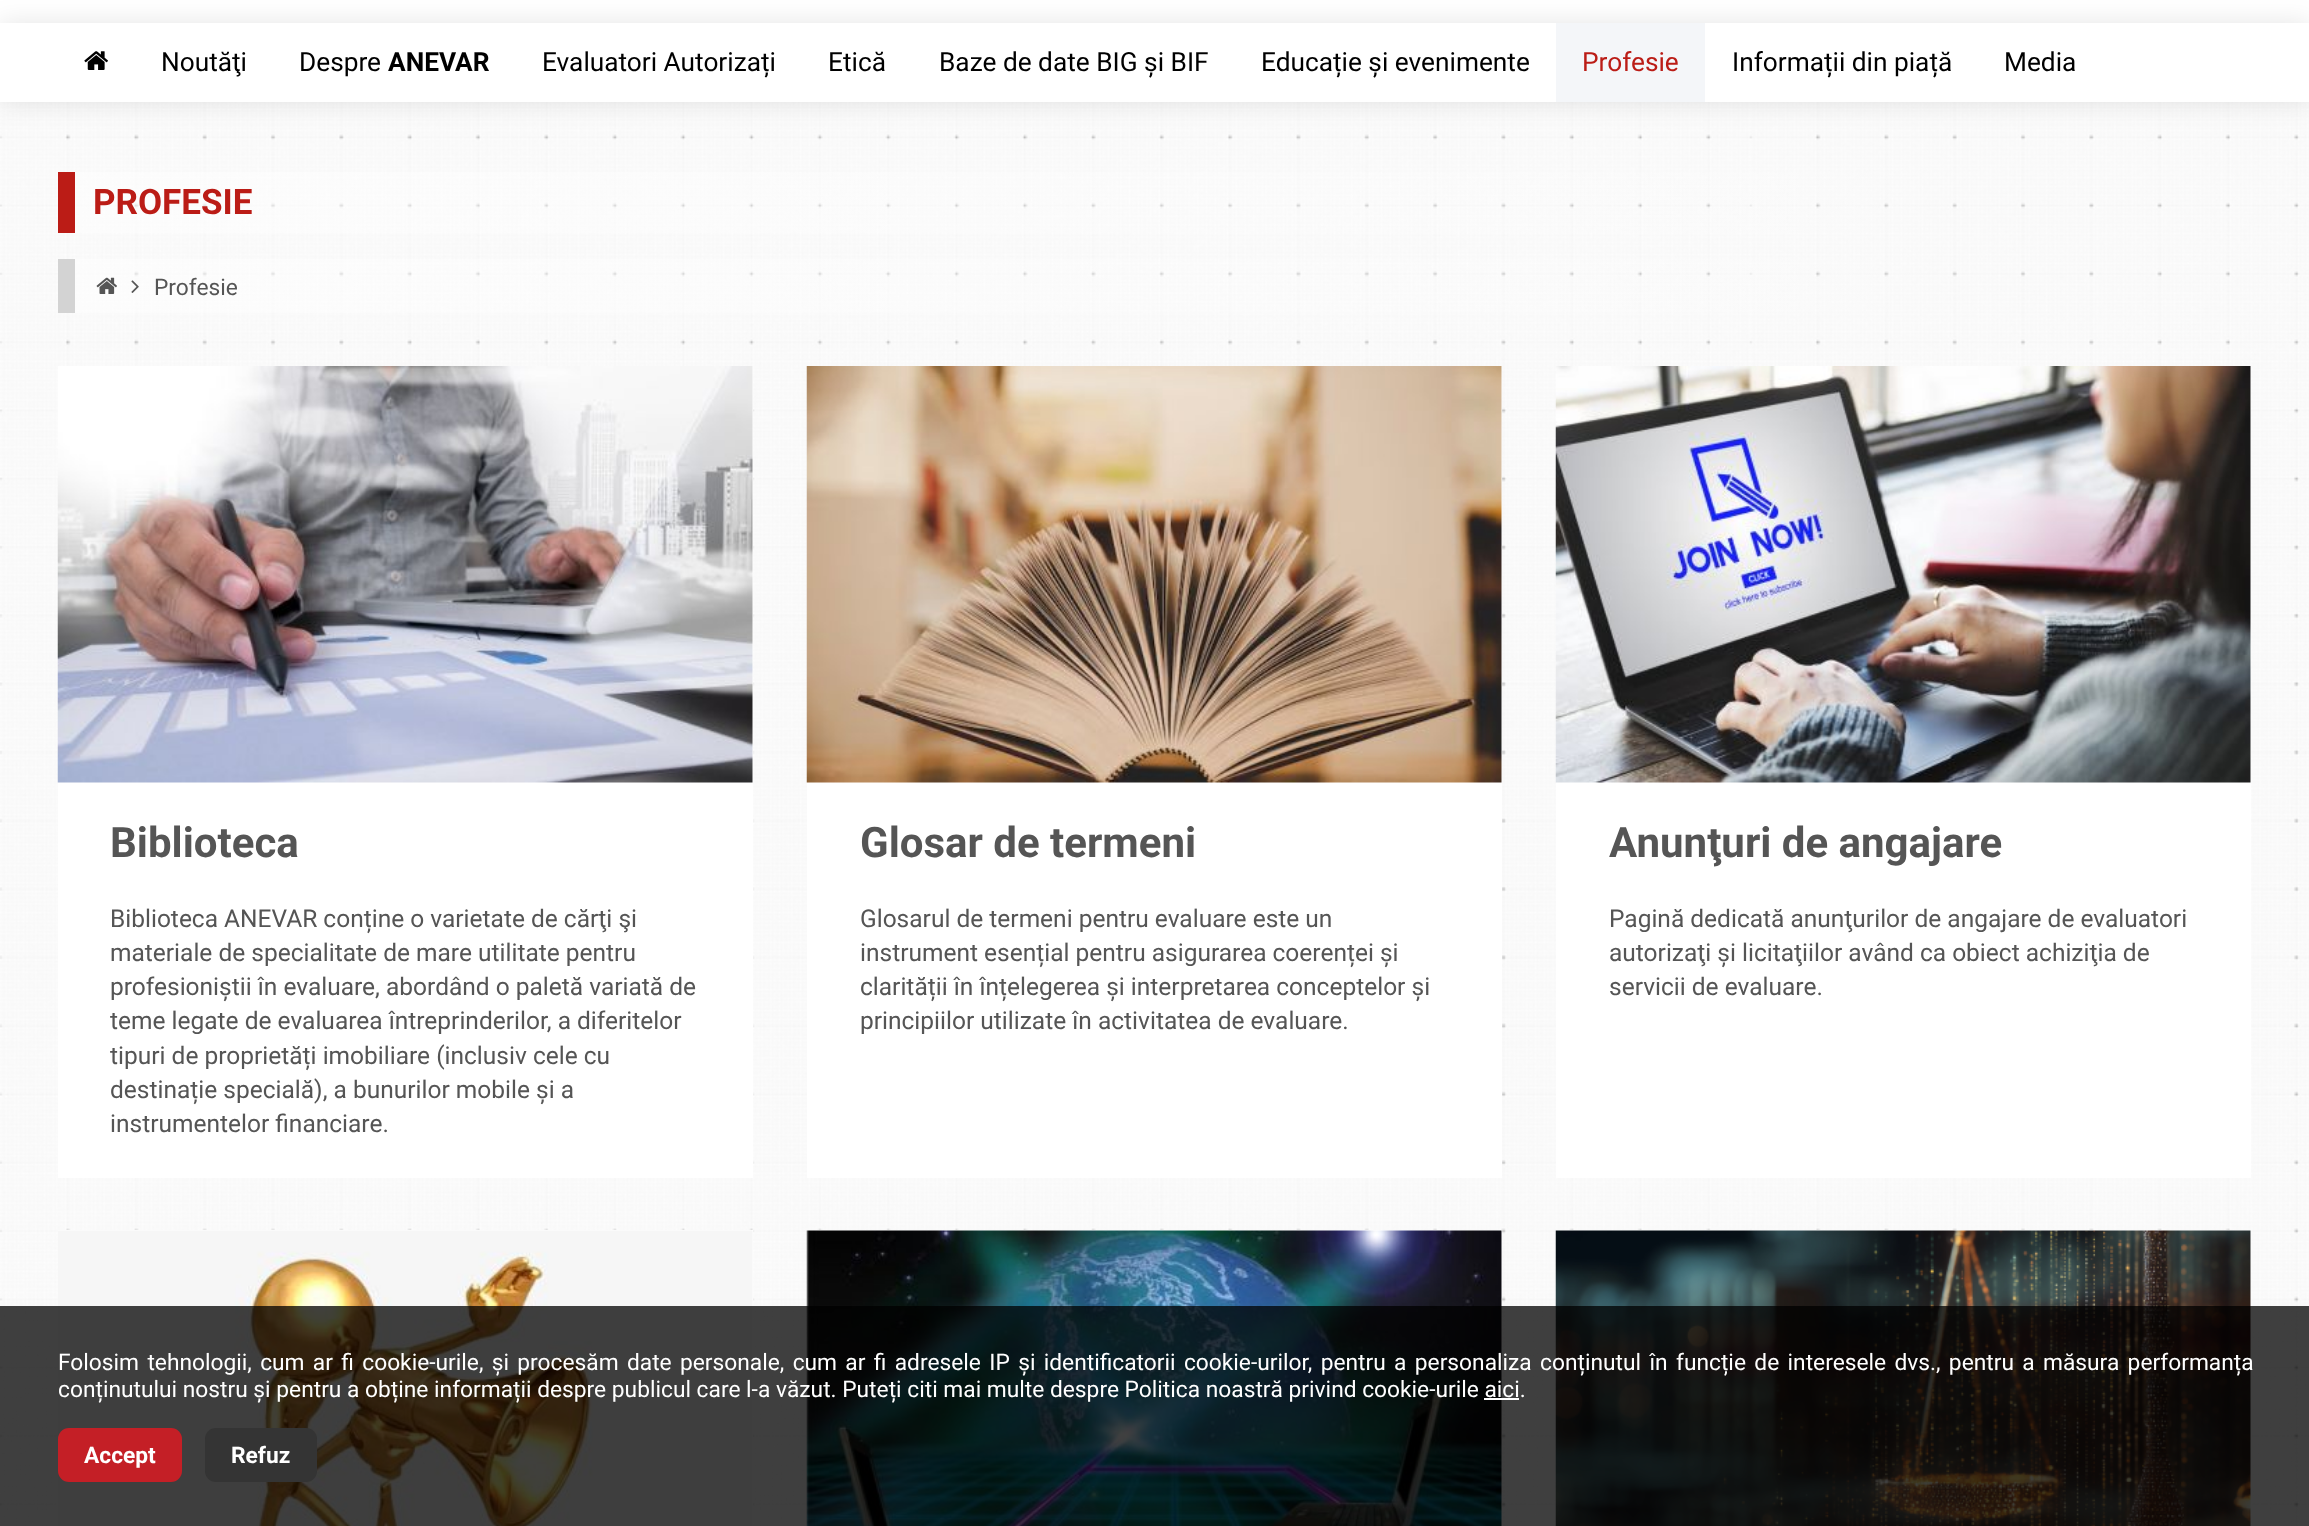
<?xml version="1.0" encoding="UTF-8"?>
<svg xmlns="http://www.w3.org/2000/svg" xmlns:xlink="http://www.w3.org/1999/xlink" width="2309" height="1526">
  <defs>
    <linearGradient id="g1" gradientUnits="userSpaceOnUse" x1="75" y1="202" x2="2252" y2="202"><stop offset="0" stop-color="#ffffff" stop-opacity="0.48" /><stop offset="1" stop-color="#ffffff" stop-opacity="0" /></linearGradient>
    <linearGradient id="g2" gradientUnits="userSpaceOnUse" x1="75" y1="286" x2="2252" y2="286"><stop offset="0" stop-color="#ffffff" stop-opacity="0.48" /><stop offset="1" stop-color="#ffffff" stop-opacity="0" /></linearGradient>
  </defs>
  <rect width="100%" height="100%" fill="#ffffff" />
  <image x="0" y="102" width="2309" height="1424" xlink:href="image1.png" />
  <rect y="23" width="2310" height="79" fill="#000000" fill-opacity="0.1" filter="blur(13px)" />
  <rect y="23" width="2309" height="79" fill="#ffffff" />
  <image x="84" y="51" width="24" height="19" xlink:href="image2.png" />
  <rect x="1556" y="23" width="149" height="79" fill="#f4f6f9" />
  <rect x="75" y="172" width="1949" height="61" fill="url(#g1)" />
  <rect x="58" y="172" width="17" height="61" fill="#bb1c16" />
  <rect x="75" y="259" width="1881" height="54" fill="url(#g2)" />
  <rect x="58" y="259" width="17" height="54" fill="#d3d3d3" />
  <image x="96" y="277" width="21" height="17" xlink:href="image3.png" />
  <image x="131" y="280" width="8" height="13" xlink:href="image4.png" />
  <rect x="58" y="366" width="695" height="812" fill="#ffffff" />
  <image x="57" y="366" width="696" height="417" xlink:href="image5.png" />
  <rect x="807" y="366" width="695" height="812" fill="#ffffff" />
  <image x="806" y="366" width="696" height="417" xlink:href="image6.png" />
  <rect x="1556" y="366" width="695" height="812" fill="#ffffff" />
  <image x="1555" y="366" width="696" height="417" xlink:href="image7.png" />
  <rect x="58" y="1230" width="695" height="296" fill="#ffffff" />
  <image x="58" y="1230" width="695" height="296" xlink:href="image8.png" />
  <rect x="807" y="1230" width="695" height="296" fill="#ffffff" />
  <image x="806" y="1230" width="696" height="296" xlink:href="image9.png" />
  <rect x="1556" y="1230" width="695" height="296" fill="#ffffff" />
  <image x="1555" y="1230" width="696" height="296" xlink:href="image10.png" />
  <rect y="1306" width="2309" height="220" fill="#000000" fill-opacity="0.75" />
  <rect x="1484" y="1398" width="35" height="2" fill="#ffffff" />
  <rect x="58" y="1428" width="124" height="54" rx="11" fill="#c41f26" />
  <rect x="205" y="1428" width="112" height="54" rx="11" fill="#343434" />
  <text x="161" y="71" style="font-family: Roboto; font-size: 26.25px; fill: #000000">Noutăţi</text>
  <text x="299" y="71" style="font-family: Roboto; font-size: 26.25px; fill: #000000">Despre</text>
  <text x="388" y="71" style="font-family: Roboto; font-size: 26.25px; font-weight: bold; fill: #000000">ANEVAR</text>
  <text x="542" y="71" style="font-family: Roboto; font-size: 26.25px; fill: #000000">Evaluatori Autorizați</text>
  <text x="828" y="71" style="font-family: Roboto; font-size: 26.25px; fill: #000000">Etică</text>
  <text x="939" y="71" style="font-family: Roboto; font-size: 26.25px; fill: #000000">Baze de date BIG și BIF</text>
  <text x="1261" y="71" style="font-family: Roboto; font-size: 26.25px; fill: #000000">Educație și evenimente</text>
  <text x="1582" y="71" style="font-family: Roboto; font-size: 26.25px; fill: #bb1c16">Profesie</text>
  <text x="1732" y="71" style="font-family: Roboto; font-size: 26.25px; fill: #000000">Informații din piață</text>
  <text x="2004" y="71" style="font-family: Roboto; font-size: 26.25px; fill: #000000">Media</text>
  <text x="93" y="214" style="font-family: Roboto; font-size: 35px; font-weight: bold; fill: #bb1c16">PROFESIE</text>
  <text x="154" y="295" style="font-family: Roboto; font-size: 22.75px; fill: #555555">Profesie</text>
  <text x="110" y="857" style="font-family: Roboto; font-size: 42px; font-weight: bold; fill: #555555">Biblioteca</text>
  <text x="110" y="927" style="font-family: Roboto; font-size: 24.5px; fill: #555555">Biblioteca ANEVAR conține o varietate de cărţi şi</text>
  <text x="110" y="961" style="font-family: Roboto; font-size: 24.5px; fill: #555555">materiale de specialitate de mare utilitate pentru</text>
  <text x="110" y="995" style="font-family: Roboto; font-size: 24.5px; fill: #555555">profesioniștii în evaluare, abordând o paletă variată de</text>
  <text x="110" y="1029" style="font-family: Roboto; font-size: 24.5px; fill: #555555">teme legate de evaluarea întreprinderilor, a diferitelor</text>
  <text x="110" y="1064" style="font-family: Roboto; font-size: 24.5px; fill: #555555">tipuri de proprietăți imobiliare (inclusiv cele cu</text>
  <text x="110" y="1098" style="font-family: Roboto; font-size: 24.5px; fill: #555555">destinație specială), a bunurilor mobile și a</text>
  <text x="110" y="1132" style="font-family: Roboto; font-size: 24.5px; fill: #555555">instrumentelor financiare.</text>
  <text x="860" y="857" style="font-family: Roboto; font-size: 42px; font-weight: bold; fill: #555555">Glosar de termeni</text>
  <text x="860" y="927" style="font-family: Roboto; font-size: 24.5px; fill: #555555">Glosarul de termeni pentru evaluare este un</text>
  <text x="860" y="961" style="font-family: Roboto; font-size: 24.5px; fill: #555555">instrument esențial pentru asigurarea coerenței și</text>
  <text x="860" y="995" style="font-family: Roboto; font-size: 24.5px; fill: #555555">clarității în înțelegerea și interpretarea conceptelor și</text>
  <text x="860" y="1029" style="font-family: Roboto; font-size: 24.5px; fill: #555555">principiilor utilizate în activitatea de evaluare.</text>
  <text x="1609" y="857" style="font-family: Roboto; font-size: 42px; font-weight: bold; fill: #555555">Anunţuri de angajare</text>
  <text x="1609" y="927" style="font-family: Roboto; font-size: 24.5px; fill: #555555">Pagină dedicată anunţurilor de angajare de evaluatori</text>
  <text x="1609" y="961" style="font-family: Roboto; font-size: 24.5px; fill: #555555">autorizaţi și licitaţiilor având ca obiect achiziţia de</text>
  <text x="1609" y="995" style="font-family: Roboto; font-size: 24.5px; fill: #555555">servicii de evaluare.</text>
  <text x="58" y="1370" word-spacing="2.7" style="font-family: Roboto; font-size: 22.75px; fill: #ffffff">Folosim tehnologii, cum ar fi cookie-urile, și procesăm date personale, cum ar fi adresele IP și identificatorii cookie-urilor, pentru a personaliza conținutul în funcție de interesele dvs., pentru a măsura performanța</text>
  <text x="58" y="1397" style="font-family: Roboto; font-size: 22.75px; fill: #ffffff">conținutului nostru și pentru a obține informații despre publicul care l-a văzut. Puteți citi mai multe despre Politica noastră privind cookie-urile aici.</text>
  <text x="84" y="1463" style="font-family: Roboto; font-size: 22.75px; font-weight: bold; fill: #ffffff">Accept</text>
  <text x="231" y="1463" style="font-family: Roboto; font-size: 22.75px; font-weight: bold; fill: #ffffff">Refuz</text>
</svg>
